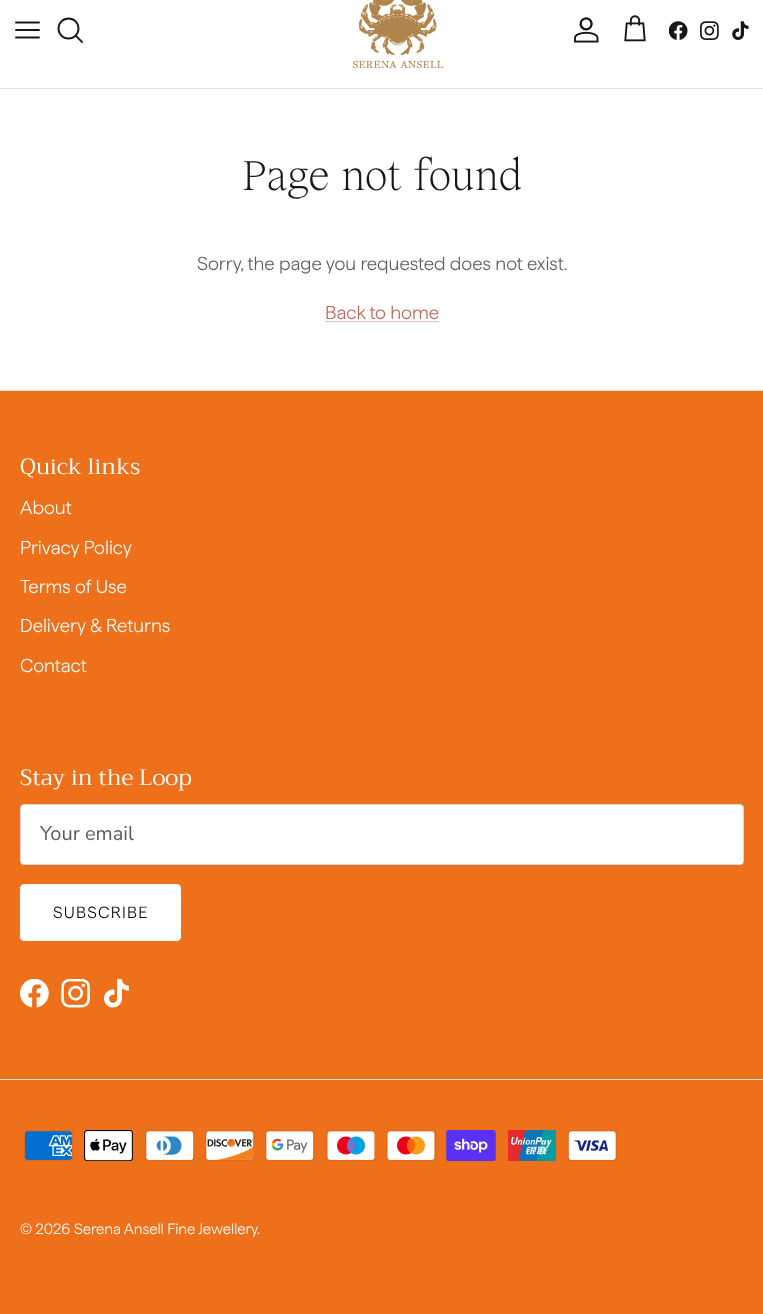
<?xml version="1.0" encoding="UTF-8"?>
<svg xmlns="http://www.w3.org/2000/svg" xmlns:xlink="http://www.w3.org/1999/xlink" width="763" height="1314">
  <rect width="100%" height="100%" fill="#ffffff" />
  <rect y="88" width="763" height="1" fill="#dfe3e8" />
  <path d="M 16 30 h 23 m -23 -7.5 h 23 m -23 15 h 23" fill="none" stroke="#171717" stroke-width="1.9" stroke-linecap="round" stroke-linejoin="round" />
  <circle cx="68.5" cy="28.5" r="10" fill="none" stroke="#171717" stroke-width="1.9" />
  <path d="M 76 36 l 6 6" fill="none" stroke="#171717" stroke-width="1.9" stroke-linecap="square" />
  <image x="352" y="0" width="91" height="69" xlink:href="image1.png" />
  <image x="574" y="17" width="25" height="26" xlink:href="image2.png" />
  <image x="624" y="15" width="22" height="27" xlink:href="image3.png" />
  <image x="669" y="21" width="19" height="19" xlink:href="image4.png" />
  <image x="700" y="21" width="19" height="19" xlink:href="image5.png" />
  <image x="732" y="21" width="17" height="19" xlink:href="image6.png" />
  <rect x="325" y="321" width="114" height="1" fill="#e6c1ba" />
  <rect y="391" width="763" height="923" fill="#ef701a" />
  <rect y="390" width="763" height="1" fill="#efdfc7" />
  <rect x="20.5" y="804.5" width="723" height="60" rx="3.5" fill="#ffffff" stroke="#d6d6d6" />
  <rect x="20.5" y="884.5" width="160" height="56" rx="3.5" fill="#ffffff" stroke="#ffffff" />
  <image x="20" y="979" width="29" height="29" xlink:href="image7.png" />
  <image x="61" y="979" width="29" height="29" xlink:href="image8.png" />
  <image x="104" y="979" width="25" height="29" xlink:href="image9.png" />
  <rect y="1079" width="763" height="1" fill="#efdfc7" />
  <image x="24" y="1130" width="49" height="31" xlink:href="image10.png" />
  <image x="84" y="1130" width="49" height="31" xlink:href="image11.png" />
  <image x="145" y="1130" width="49" height="31" xlink:href="image12.png" />
  <image x="205" y="1130" width="50" height="31" xlink:href="image13.png" />
  <image x="265" y="1130" width="50" height="31" xlink:href="image14.png" />
  <image x="326" y="1130" width="49" height="31" xlink:href="image15.png" />
  <image x="386" y="1130" width="50" height="31" xlink:href="image16.png" />
  <image x="446" y="1130" width="50" height="31" xlink:href="image17.png" />
  <image x="508" y="1130" width="48" height="31" xlink:href="image18.png" />
  <image x="568" y="1130" width="49" height="31" xlink:href="image19.png" />
  <text x="242" y="190" style="font-family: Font; font-size: 41.25px; font-weight: 200; fill: #171717">Page not found</text>
  <text x="197" y="270" style="font-family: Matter; font-size: 18.75px; font-weight: 300; fill: #5c5c5c">Sorry, the page you requested does not exist.</text>
  <text x="325" y="319" style="font-family: Matter; font-size: 18.75px; font-weight: 300; fill: #c16452">Back to home</text>
  <text x="20" y="474" style="font-family: Trirong; font-size: 22.25px; fill: #ffffff">Quick links</text>
  <text x="20" y="514" style="font-family: Matter; font-size: 18.75px; font-weight: 300; fill: #ffffff">About</text>
  <text x="20" y="554" style="font-family: Matter; font-size: 18.75px; font-weight: 300; fill: #ffffff">Privacy Policy</text>
  <text x="20" y="593" style="font-family: Matter; font-size: 18.75px; font-weight: 300; fill: #ffffff">Terms of Use</text>
  <text x="20" y="632" style="font-family: Matter; font-size: 18.75px; font-weight: 300; fill: #ffffff">Delivery &amp; Returns</text>
  <text x="20" y="672" style="font-family: Matter; font-size: 18.75px; font-weight: 300; fill: #ffffff">Contact</text>
  <text x="20" y="785" style="font-family: Trirong; font-size: 22.25px; fill: #ffffff">Stay in the Loop</text>
  <text x="40" y="840" style="font-family: Nunito Sans; font-size: 20px; fill: #5c5c5c">Your email</text>
  <text x="53" y="918" style="font-family: Matter; font-size: 16.25px; font-weight: 300; letter-spacing: 1.25px; fill: #000000">SUBSCRIBE</text>
  <text x="20" y="1234" style="font-family: Matter; font-size: 15px; font-weight: 300; fill: #ffffff">© 2026</text>
  <text x="74" y="1234" style="font-family: Matter; font-size: 15px; font-weight: 300; fill: #ffffff">Serena Ansell Fine Jewellery</text>
  <text x="257" y="1234" style="font-family: Matter; font-size: 15px; font-weight: 300; fill: #ffffff">.</text>
</svg>
